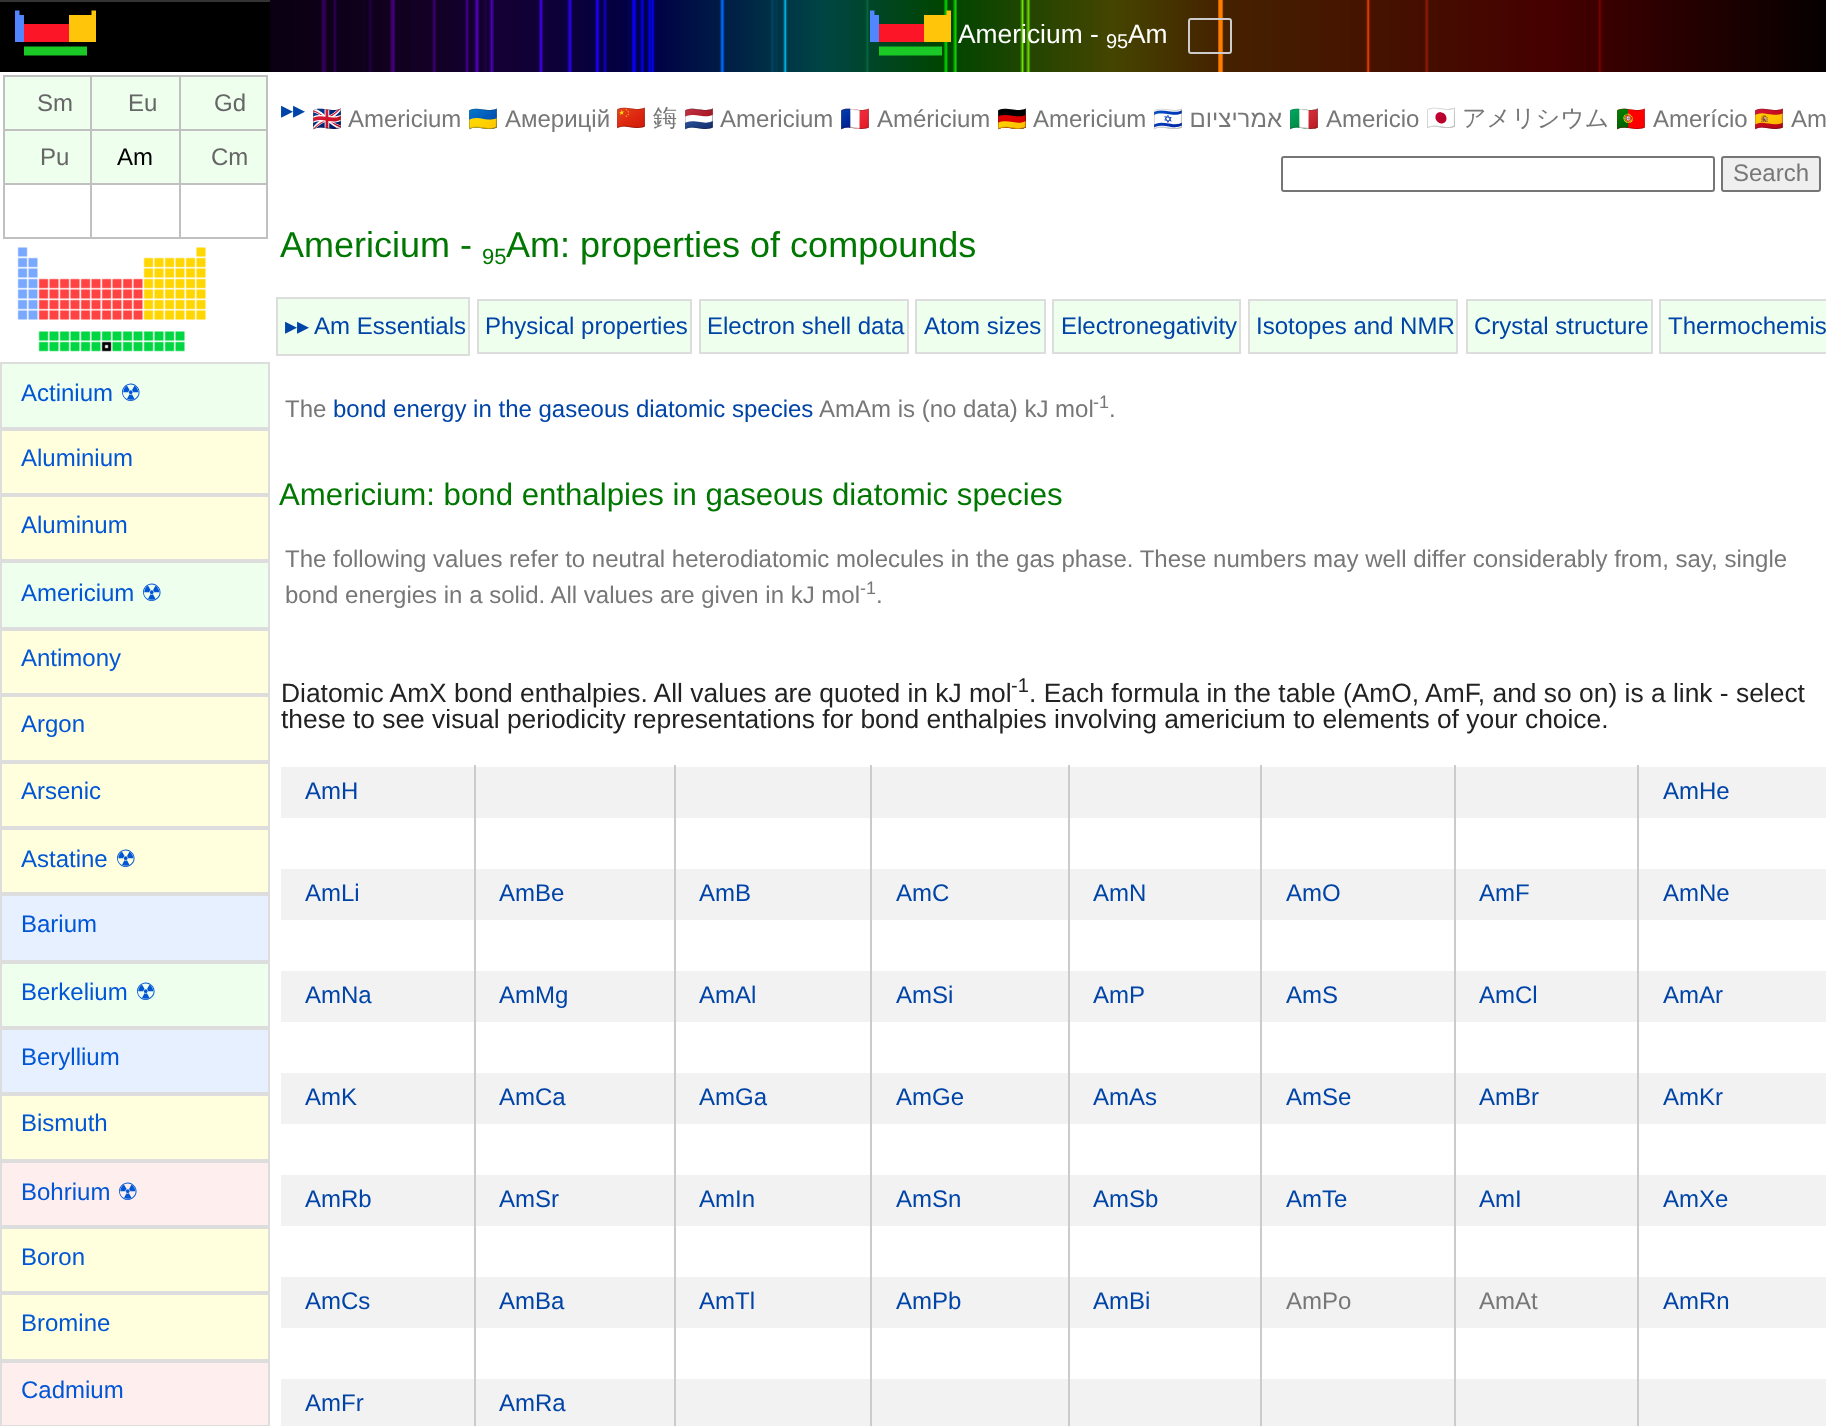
<?xml version="1.0" encoding="UTF-8"?>
<svg xmlns="http://www.w3.org/2000/svg" xmlns:xlink="http://www.w3.org/1999/xlink" width="1826" height="1426">
  <rect width="100%" height="100%" fill="#ffffff" />
  <image x="270" y="0" width="1556" height="72" xlink:href="image1.png" />
  <image x="870" y="10" width="81" height="46" xlink:href="image2.png" />
  <rect x="1189" y="19" width="42" height="34" rx="2" fill="none" stroke="#cccccc" stroke-width="2" />
  <rect width="270" height="2" fill="#333333" />
  <rect y="2" width="270" height="70" fill="#000000" />
  <image x="15" y="10" width="81" height="46" xlink:href="image3.png" />
  <rect x="5" y="77" width="85" height="52" fill="#eeffee" />
  <rect x="179" y="75" width="88" height="2" fill="#c0c0c0" />
  <rect x="179" y="129" width="88" height="2" fill="#c0c0c0" />
  <rect x="179" y="183" width="88" height="2" fill="#c0c0c0" />
  <rect x="266" y="183" width="2" height="56" fill="#c0c0c0" />
  <rect x="179" y="237" width="88" height="2" fill="#c0c0c0" />
  <rect x="179" y="183" width="2" height="56" fill="#c0c0c0" />
  <rect x="90" y="183" width="90" height="2" fill="#c0c0c0" />
  <rect x="179" y="129" width="2" height="56" fill="#c0c0c0" />
  <rect x="90" y="129" width="90" height="2" fill="#c0c0c0" />
  <rect x="179" y="75" width="2" height="56" fill="#c0c0c0" />
  <rect x="90" y="75" width="90" height="2" fill="#c0c0c0" />
  <rect x="90" y="237" width="90" height="2" fill="#c0c0c0" />
  <rect x="90" y="183" width="2" height="56" fill="#c0c0c0" />
  <rect x="3" y="183" width="89" height="2" fill="#c0c0c0" />
  <rect x="90" y="129" width="2" height="56" fill="#c0c0c0" />
  <rect x="3" y="129" width="89" height="2" fill="#c0c0c0" />
  <rect x="90" y="75" width="2" height="56" fill="#c0c0c0" />
  <rect x="3" y="75" width="89" height="2" fill="#c0c0c0" />
  <rect x="3" y="237" width="89" height="2" fill="#c0c0c0" />
  <rect x="3" y="183" width="2" height="56" fill="#c0c0c0" />
  <rect x="3" y="129" width="2" height="56" fill="#c0c0c0" />
  <rect x="3" y="75" width="2" height="56" fill="#c0c0c0" />
  <rect x="92" y="77" width="87" height="52" fill="#eeffee" />
  <rect x="181" y="77" width="85" height="52" fill="#eeffee" />
  <rect x="266" y="129" width="2" height="56" fill="#c0c0c0" />
  <rect x="266" y="75" width="2" height="56" fill="#c0c0c0" />
  <rect x="5" y="131" width="85" height="52" fill="#eeffee" />
  <rect x="92" y="131" width="87" height="52" fill="#eeffee" />
  <rect x="181" y="131" width="85" height="52" fill="#eeffee" />
  <image x="17" y="247" width="189" height="105" xlink:href="image4.png" />
  <rect x="1" y="363" width="268" height="65" fill="#eeffee" stroke="#dddddd" stroke-width="2" />
  <rect x="1" y="430" width="268" height="64" fill="#fffedd" stroke="#dddddd" stroke-width="2" />
  <rect x="1" y="496" width="268" height="64" fill="#fffedd" stroke="#dddddd" stroke-width="2" />
  <rect x="1" y="562" width="268" height="66" fill="#eeffee" stroke="#dddddd" stroke-width="2" />
  <rect x="1" y="630" width="268" height="64" fill="#fffedd" stroke="#dddddd" stroke-width="2" />
  <rect x="1" y="696" width="268" height="65" fill="#fffedd" stroke="#dddddd" stroke-width="2" />
  <rect x="1" y="763" width="268" height="64" fill="#fffedd" stroke="#dddddd" stroke-width="2" />
  <rect x="1" y="829" width="268" height="64" fill="#fffedd" stroke="#dddddd" stroke-width="2" />
  <rect x="1" y="895" width="268" height="66" fill="#e6f0ff" stroke="#dddddd" stroke-width="2" />
  <rect x="1" y="963" width="268" height="64" fill="#eeffee" stroke="#dddddd" stroke-width="2" />
  <rect x="1" y="1029" width="268" height="64" fill="#e6f0ff" stroke="#dddddd" stroke-width="2" />
  <rect x="1" y="1095" width="268" height="65" fill="#fffedd" stroke="#dddddd" stroke-width="2" />
  <rect x="1" y="1162" width="268" height="64" fill="#ffeeee" stroke="#dddddd" stroke-width="2" />
  <rect x="1" y="1228" width="268" height="64" fill="#fffedd" stroke="#dddddd" stroke-width="2" />
  <rect x="1" y="1294" width="268" height="66" fill="#fffedd" stroke="#dddddd" stroke-width="2" />
  <rect x="1" y="1362" width="268" height="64" fill="#ffeeee" stroke="#dddddd" stroke-width="2" />
  <rect x="1282" y="157" width="432" height="34" rx="2" fill="none" stroke="#767676" stroke-width="2" />
  <rect x="1722" y="157" width="98" height="34" rx="2" fill="#efefef" stroke="#767676" stroke-width="2" />
  <rect x="277" y="298" width="192" height="57" fill="#eeffee" stroke="#dddddd" stroke-width="2" />
  <rect x="478" y="300" width="213" height="53" fill="#eeffee" stroke="#dddddd" stroke-width="2" />
  <rect x="700" y="300" width="208" height="53" fill="#eeffee" stroke="#dddddd" stroke-width="2" />
  <rect x="916" y="300" width="129" height="53" fill="#eeffee" stroke="#dddddd" stroke-width="2" />
  <rect x="1053" y="300" width="187" height="53" fill="#eeffee" stroke="#dddddd" stroke-width="2" />
  <rect x="1249" y="300" width="208" height="53" fill="#eeffee" stroke="#dddddd" stroke-width="2" />
  <rect x="1467" y="300" width="185" height="53" fill="#eeffee" stroke="#dddddd" stroke-width="2" />
  <rect x="1660" y="300" width="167" height="53" fill="#eeffee" stroke="#dddddd" stroke-width="2" />
  <rect x="281" y="767" width="193" height="51" fill="#f2f2f2" />
  <rect x="476" y="767" width="198" height="51" fill="#f2f2f2" />
  <rect x="676" y="767" width="194" height="51" fill="#f2f2f2" />
  <rect x="872" y="767" width="196" height="51" fill="#f2f2f2" />
  <rect x="1070" y="767" width="190" height="51" fill="#f2f2f2" />
  <rect x="1262" y="767" width="192" height="51" fill="#f2f2f2" />
  <rect x="1456" y="767" width="181" height="51" fill="#f2f2f2" />
  <rect x="1639" y="767" width="187" height="51" fill="#f2f2f2" />
  <rect x="281" y="869" width="193" height="51" fill="#f2f2f2" />
  <rect x="476" y="869" width="198" height="51" fill="#f2f2f2" />
  <rect x="676" y="869" width="194" height="51" fill="#f2f2f2" />
  <rect x="872" y="869" width="196" height="51" fill="#f2f2f2" />
  <rect x="1070" y="869" width="190" height="51" fill="#f2f2f2" />
  <rect x="1262" y="869" width="192" height="51" fill="#f2f2f2" />
  <rect x="1456" y="869" width="181" height="51" fill="#f2f2f2" />
  <rect x="1639" y="869" width="187" height="51" fill="#f2f2f2" />
  <rect x="281" y="971" width="193" height="51" fill="#f2f2f2" />
  <rect x="476" y="971" width="198" height="51" fill="#f2f2f2" />
  <rect x="676" y="971" width="194" height="51" fill="#f2f2f2" />
  <rect x="872" y="971" width="196" height="51" fill="#f2f2f2" />
  <rect x="1070" y="971" width="190" height="51" fill="#f2f2f2" />
  <rect x="1262" y="971" width="192" height="51" fill="#f2f2f2" />
  <rect x="1456" y="971" width="181" height="51" fill="#f2f2f2" />
  <rect x="1639" y="971" width="187" height="51" fill="#f2f2f2" />
  <rect x="281" y="1073" width="193" height="51" fill="#f2f2f2" />
  <rect x="476" y="1073" width="198" height="51" fill="#f2f2f2" />
  <rect x="676" y="1073" width="194" height="51" fill="#f2f2f2" />
  <rect x="872" y="1073" width="196" height="51" fill="#f2f2f2" />
  <rect x="1070" y="1073" width="190" height="51" fill="#f2f2f2" />
  <rect x="1262" y="1073" width="192" height="51" fill="#f2f2f2" />
  <rect x="1456" y="1073" width="181" height="51" fill="#f2f2f2" />
  <rect x="1639" y="1073" width="187" height="51" fill="#f2f2f2" />
  <rect x="281" y="1175" width="193" height="51" fill="#f2f2f2" />
  <rect x="476" y="1175" width="198" height="51" fill="#f2f2f2" />
  <rect x="676" y="1175" width="194" height="51" fill="#f2f2f2" />
  <rect x="872" y="1175" width="196" height="51" fill="#f2f2f2" />
  <rect x="1070" y="1175" width="190" height="51" fill="#f2f2f2" />
  <rect x="1262" y="1175" width="192" height="51" fill="#f2f2f2" />
  <rect x="1456" y="1175" width="181" height="51" fill="#f2f2f2" />
  <rect x="1639" y="1175" width="187" height="51" fill="#f2f2f2" />
  <rect x="281" y="1277" width="193" height="51" fill="#f2f2f2" />
  <rect x="476" y="1277" width="198" height="51" fill="#f2f2f2" />
  <rect x="676" y="1277" width="194" height="51" fill="#f2f2f2" />
  <rect x="872" y="1277" width="196" height="51" fill="#f2f2f2" />
  <rect x="1070" y="1277" width="190" height="51" fill="#f2f2f2" />
  <rect x="1262" y="1277" width="192" height="51" fill="#f2f2f2" />
  <rect x="1456" y="1277" width="181" height="51" fill="#f2f2f2" />
  <rect x="1639" y="1277" width="187" height="51" fill="#f2f2f2" />
  <rect x="281" y="1379" width="193" height="47" fill="#f2f2f2" />
  <rect x="476" y="1379" width="198" height="47" fill="#f2f2f2" />
  <rect x="474" y="765" width="2" height="661" fill="#cbcbcb" />
  <rect x="676" y="1379" width="194" height="47" fill="#f2f2f2" />
  <rect x="674" y="765" width="2" height="661" fill="#cbcbcb" />
  <rect x="872" y="1379" width="196" height="47" fill="#f2f2f2" />
  <rect x="870" y="765" width="2" height="661" fill="#cbcbcb" />
  <rect x="1070" y="1379" width="190" height="47" fill="#f2f2f2" />
  <rect x="1068" y="765" width="2" height="661" fill="#cbcbcb" />
  <rect x="1262" y="1379" width="192" height="47" fill="#f2f2f2" />
  <rect x="1260" y="765" width="2" height="661" fill="#cbcbcb" />
  <rect x="1456" y="1379" width="181" height="47" fill="#f2f2f2" />
  <rect x="1454" y="765" width="2" height="661" fill="#cbcbcb" />
  <rect x="1639" y="1379" width="187" height="47" fill="#f2f2f2" />
  <rect x="1637" y="765" width="2" height="661" fill="#cbcbcb" />
  <text x="958" y="43" style="font-family: Liberation Sans; font-size: 26.4px; fill: #ffffff">Americium -</text>
  <text x="1106" y="48" style="font-family: Liberation Sans; font-size: 20px; fill: #ffffff">95</text>
  <text x="1128" y="43" style="font-family: Liberation Sans; font-size: 26.4px; fill: #ffffff">Am</text>
  <text x="37" y="111" style="font-family: Liberation Sans; font-size: 24px; fill: #666666">Sm</text>
  <text x="128" y="111" style="font-family: Liberation Sans; font-size: 24px; fill: #666666">Eu</text>
  <text x="214" y="111" style="font-family: Liberation Sans; font-size: 24px; fill: #666666">Gd</text>
  <text x="40" y="165" style="font-family: Liberation Sans; font-size: 24px; fill: #666666">Pu</text>
  <text x="117" y="165" style="font-family: Liberation Sans; font-size: 24px; fill: #000000">Am</text>
  <text x="211" y="165" style="font-family: Liberation Sans; font-size: 24px; fill: #666666">Cm</text>
  <text x="21" y="401" style="font-family: Liberation Sans; font-size: 24px; fill: #0056d5">Actinium</text>
  <text x="120" y="401" style="font-family: DejaVu Sans; font-size: 24px; fill: #0056d5">☢</text>
  <text x="21" y="466" style="font-family: Liberation Sans; font-size: 24px; fill: #0056d5">Aluminium</text>
  <text x="21" y="533" style="font-family: Liberation Sans; font-size: 24px; fill: #0056d5">Aluminum</text>
  <text x="21" y="601" style="font-family: Liberation Sans; font-size: 24px; fill: #0056d5">Americium</text>
  <text x="141" y="601" style="font-family: DejaVu Sans; font-size: 24px; fill: #0056d5">☢</text>
  <text x="21" y="666" style="font-family: Liberation Sans; font-size: 24px; fill: #0056d5">Antimony</text>
  <text x="21" y="732" style="font-family: Liberation Sans; font-size: 24px; fill: #0056d5">Argon</text>
  <text x="21" y="799" style="font-family: Liberation Sans; font-size: 24px; fill: #0056d5">Arsenic</text>
  <text x="21" y="867" style="font-family: Liberation Sans; font-size: 24px; fill: #0056d5">Astatine</text>
  <text x="115" y="867" style="font-family: DejaVu Sans; font-size: 24px; fill: #0056d5">☢</text>
  <text x="21" y="932" style="font-family: Liberation Sans; font-size: 24px; fill: #0056d5">Barium</text>
  <text x="21" y="1000" style="font-family: Liberation Sans; font-size: 24px; fill: #0056d5">Berkelium</text>
  <text x="135" y="1000" style="font-family: DejaVu Sans; font-size: 24px; fill: #0056d5">☢</text>
  <text x="21" y="1065" style="font-family: Liberation Sans; font-size: 24px; fill: #0056d5">Beryllium</text>
  <text x="21" y="1131" style="font-family: Liberation Sans; font-size: 24px; fill: #0056d5">Bismuth</text>
  <text x="21" y="1200" style="font-family: Liberation Sans; font-size: 24px; fill: #0056d5">Bohrium</text>
  <text x="117" y="1200" style="font-family: DejaVu Sans; font-size: 24px; fill: #0056d5">☢</text>
  <text x="21" y="1265" style="font-family: Liberation Sans; font-size: 24px; fill: #0056d5">Boron</text>
  <text x="21" y="1331" style="font-family: Liberation Sans; font-size: 24px; fill: #0056d5">Bromine</text>
  <text x="21" y="1398" style="font-family: Liberation Sans; font-size: 24px; fill: #0056d5">Cadmium</text>
  <text x="281" y="118" style="font-family: DejaVu Sans; font-size: 24px; fill: #0044a8">▸▸</text>
  <text x="312" y="127" style="font-family: Noto Color Emoji; font-size: 24px; fill: #777777">🇬🇧</text>
  <text x="348" y="127" style="font-family: Liberation Sans; font-size: 24px; fill: #777777">Americium</text>
  <text x="468" y="127" style="font-family: Noto Color Emoji; font-size: 24px; fill: #777777">🇺🇦</text>
  <text x="505" y="127" style="font-family: Liberation Sans; font-size: 24px; fill: #777777">Америцій</text>
  <text x="616" y="126" style="font-family: Noto Color Emoji; font-size: 24px; fill: #777777">🇨🇳</text>
  <text x="653" y="126" style="font-family: WenQuanYi Zen Hei; font-size: 24px; font-weight: 500; fill: #777777">鋂</text>
  <text x="684" y="127" style="font-family: Noto Color Emoji; font-size: 24px; fill: #777777">🇳🇱</text>
  <text x="720" y="127" style="font-family: Liberation Sans; font-size: 24px; fill: #777777">Americium</text>
  <text x="840" y="127" style="font-family: Noto Color Emoji; font-size: 24px; fill: #777777">🇫🇷</text>
  <text x="877" y="127" style="font-family: Liberation Sans; font-size: 24px; fill: #777777">Américium</text>
  <text x="997" y="127" style="font-family: Noto Color Emoji; font-size: 24px; fill: #777777">🇩🇪</text>
  <text x="1033" y="127" style="font-family: Liberation Sans; font-size: 24px; fill: #777777">Americium</text>
  <text x="1153" y="127" style="font-family: Noto Color Emoji; font-size: 24px; fill: #777777">🇮🇱</text>
  <text x="1282" y="127" style="font-family: Liberation Sans; font-size: 24px; direction: rtl; fill: #777777">אמריציום</text>
  <text x="1289" y="127" style="font-family: Noto Color Emoji; font-size: 24px; fill: #777777">🇮🇹</text>
  <text x="1326" y="127" style="font-family: Liberation Sans; font-size: 24px; fill: #777777">Americio</text>
  <text x="1426" y="126" style="font-family: Noto Color Emoji; font-size: 24px; fill: #777777">🇯🇵</text>
  <text x="1462" y="126" style="font-family: WenQuanYi Zen Hei; font-size: 24px; font-weight: 500; fill: #777777">アメリシウム</text>
  <text x="1616" y="127" style="font-family: Noto Color Emoji; font-size: 24px; fill: #777777">🇵🇹</text>
  <text x="1653" y="127" style="font-family: Liberation Sans; font-size: 24px; fill: #777777">Amerício</text>
  <text x="1754" y="127" style="font-family: Noto Color Emoji; font-size: 24px; fill: #777777">🇪🇸</text>
  <text x="1791" y="127" style="font-family: Liberation Sans; font-size: 24px; fill: #777777">Am</text>
  <text x="1733" y="181" style="font-family: Liberation Sans; font-size: 24px; fill: #777777">Search</text>
  <text x="280" y="257" style="font-family: Liberation Sans; font-size: 36px; fill: #007700">Americium -</text>
  <text x="482" y="264" style="font-family: Liberation Sans; font-size: 22px; fill: #007700">95</text>
  <text x="506" y="257" style="font-family: Liberation Sans; font-size: 36px; fill: #007700">Am: properties of compounds</text>
  <text x="285" y="334" style="font-family: DejaVu Sans; font-size: 24px; fill: #0044a8">▸▸</text>
  <text x="314" y="334" style="font-family: Liberation Sans; font-size: 24px; fill: #0044a8">Am Essentials</text>
  <text x="485" y="334" style="font-family: Liberation Sans; font-size: 24px; fill: #0044a8">Physical properties</text>
  <text x="707" y="334" style="font-family: Liberation Sans; font-size: 24px; fill: #0044a8">Electron shell data</text>
  <text x="924" y="334" style="font-family: Liberation Sans; font-size: 24px; fill: #0044a8">Atom sizes</text>
  <text x="1061" y="334" style="font-family: Liberation Sans; font-size: 24px; fill: #0044a8">Electronegativity</text>
  <text x="1256" y="334" style="font-family: Liberation Sans; font-size: 24px; fill: #0044a8">Isotopes and NMR</text>
  <text x="1474" y="334" style="font-family: Liberation Sans; font-size: 24px; fill: #0044a8">Crystal structure</text>
  <text x="1668" y="334" style="font-family: Liberation Sans; font-size: 24px; fill: #0044a8">Thermochemis</text>
  <text x="285" y="417" style="font-family: Liberation Sans; font-size: 24px; fill: #777777">The</text>
  <text x="333" y="417" style="font-family: Liberation Sans; font-size: 24px; fill: #0044a8">bond energy in the gaseous diatomic species</text>
  <text x="819" y="417" style="font-family: Liberation Sans; font-size: 24px; fill: #777777">AmAm is (no data) kJ mol</text>
  <text x="1093" y="408" style="font-family: Liberation Sans; font-size: 18px; fill: #777777">-1</text>
  <text x="1109" y="417" style="font-family: Liberation Sans; font-size: 24px; fill: #777777">.</text>
  <text x="279" y="505" style="font-family: Liberation Sans; font-size: 31.2px; fill: #007700">Americium: bond enthalpies in gaseous diatomic species</text>
  <text x="285" y="567" style="font-family: Liberation Sans; font-size: 24px; fill: #777777">The following values refer to neutral heterodiatomic molecules in the gas phase. These numbers may well differ considerably from, say, single</text>
  <text x="285" y="603" style="font-family: Liberation Sans; font-size: 24px; fill: #777777">bond energies in a solid. All values are given in kJ mol</text>
  <text x="860" y="594" style="font-family: Liberation Sans; font-size: 18px; fill: #777777">-1</text>
  <text x="876" y="603" style="font-family: Liberation Sans; font-size: 24px; fill: #777777">.</text>
  <text x="281" y="702" style="font-family: Liberation Sans; font-size: 26.4px; fill: #222222">Diatomic AmX bond enthalpies. All values are quoted in kJ mol</text>
  <text x="1011" y="692" style="font-family: Liberation Sans; font-size: 20px; fill: #222222">-1</text>
  <text x="1029" y="702" style="font-family: Liberation Sans; font-size: 26.4px; fill: #222222">. Each formula in the table (AmO, AmF, and so on) is a link - select</text>
  <text x="281" y="728" style="font-family: Liberation Sans; font-size: 26.4px; fill: #222222">these to see visual periodicity representations for bond enthalpies involving americium to elements of your choice.</text>
  <text x="305" y="799" style="font-family: Liberation Sans; font-size: 24px; fill: #0044a8">AmH</text>
  <text x="1663" y="799" style="font-family: Liberation Sans; font-size: 24px; fill: #0044a8">AmHe</text>
  <text x="305" y="901" style="font-family: Liberation Sans; font-size: 24px; fill: #0044a8">AmLi</text>
  <text x="499" y="901" style="font-family: Liberation Sans; font-size: 24px; fill: #0044a8">AmBe</text>
  <text x="699" y="901" style="font-family: Liberation Sans; font-size: 24px; fill: #0044a8">AmB</text>
  <text x="896" y="901" style="font-family: Liberation Sans; font-size: 24px; fill: #0044a8">AmC</text>
  <text x="1093" y="901" style="font-family: Liberation Sans; font-size: 24px; fill: #0044a8">AmN</text>
  <text x="1286" y="901" style="font-family: Liberation Sans; font-size: 24px; fill: #0044a8">AmO</text>
  <text x="1479" y="901" style="font-family: Liberation Sans; font-size: 24px; fill: #0044a8">AmF</text>
  <text x="1663" y="901" style="font-family: Liberation Sans; font-size: 24px; fill: #0044a8">AmNe</text>
  <text x="305" y="1003" style="font-family: Liberation Sans; font-size: 24px; fill: #0044a8">AmNa</text>
  <text x="499" y="1003" style="font-family: Liberation Sans; font-size: 24px; fill: #0044a8">AmMg</text>
  <text x="699" y="1003" style="font-family: Liberation Sans; font-size: 24px; fill: #0044a8">AmAl</text>
  <text x="896" y="1003" style="font-family: Liberation Sans; font-size: 24px; fill: #0044a8">AmSi</text>
  <text x="1093" y="1003" style="font-family: Liberation Sans; font-size: 24px; fill: #0044a8">AmP</text>
  <text x="1286" y="1003" style="font-family: Liberation Sans; font-size: 24px; fill: #0044a8">AmS</text>
  <text x="1479" y="1003" style="font-family: Liberation Sans; font-size: 24px; fill: #0044a8">AmCl</text>
  <text x="1663" y="1003" style="font-family: Liberation Sans; font-size: 24px; fill: #0044a8">AmAr</text>
  <text x="305" y="1105" style="font-family: Liberation Sans; font-size: 24px; fill: #0044a8">AmK</text>
  <text x="499" y="1105" style="font-family: Liberation Sans; font-size: 24px; fill: #0044a8">AmCa</text>
  <text x="699" y="1105" style="font-family: Liberation Sans; font-size: 24px; fill: #0044a8">AmGa</text>
  <text x="896" y="1105" style="font-family: Liberation Sans; font-size: 24px; fill: #0044a8">AmGe</text>
  <text x="1093" y="1105" style="font-family: Liberation Sans; font-size: 24px; fill: #0044a8">AmAs</text>
  <text x="1286" y="1105" style="font-family: Liberation Sans; font-size: 24px; fill: #0044a8">AmSe</text>
  <text x="1479" y="1105" style="font-family: Liberation Sans; font-size: 24px; fill: #0044a8">AmBr</text>
  <text x="1663" y="1105" style="font-family: Liberation Sans; font-size: 24px; fill: #0044a8">AmKr</text>
  <text x="305" y="1207" style="font-family: Liberation Sans; font-size: 24px; fill: #0044a8">AmRb</text>
  <text x="499" y="1207" style="font-family: Liberation Sans; font-size: 24px; fill: #0044a8">AmSr</text>
  <text x="699" y="1207" style="font-family: Liberation Sans; font-size: 24px; fill: #0044a8">AmIn</text>
  <text x="896" y="1207" style="font-family: Liberation Sans; font-size: 24px; fill: #0044a8">AmSn</text>
  <text x="1093" y="1207" style="font-family: Liberation Sans; font-size: 24px; fill: #0044a8">AmSb</text>
  <text x="1286" y="1207" style="font-family: Liberation Sans; font-size: 24px; fill: #0044a8">AmTe</text>
  <text x="1479" y="1207" style="font-family: Liberation Sans; font-size: 24px; fill: #0044a8">AmI</text>
  <text x="1663" y="1207" style="font-family: Liberation Sans; font-size: 24px; fill: #0044a8">AmXe</text>
  <text x="305" y="1309" style="font-family: Liberation Sans; font-size: 24px; fill: #0044a8">AmCs</text>
  <text x="499" y="1309" style="font-family: Liberation Sans; font-size: 24px; fill: #0044a8">AmBa</text>
  <text x="699" y="1309" style="font-family: Liberation Sans; font-size: 24px; fill: #0044a8">AmTl</text>
  <text x="896" y="1309" style="font-family: Liberation Sans; font-size: 24px; fill: #0044a8">AmPb</text>
  <text x="1093" y="1309" style="font-family: Liberation Sans; font-size: 24px; fill: #0044a8">AmBi</text>
  <text x="1286" y="1309" style="font-family: Liberation Sans; font-size: 24px; fill: #777777">AmPo</text>
  <text x="1479" y="1309" style="font-family: Liberation Sans; font-size: 24px; fill: #777777">AmAt</text>
  <text x="1663" y="1309" style="font-family: Liberation Sans; font-size: 24px; fill: #0044a8">AmRn</text>
  <text x="305" y="1411" style="font-family: Liberation Sans; font-size: 24px; fill: #0044a8">AmFr</text>
  <text x="499" y="1411" style="font-family: Liberation Sans; font-size: 24px; fill: #0044a8">AmRa</text>
</svg>
